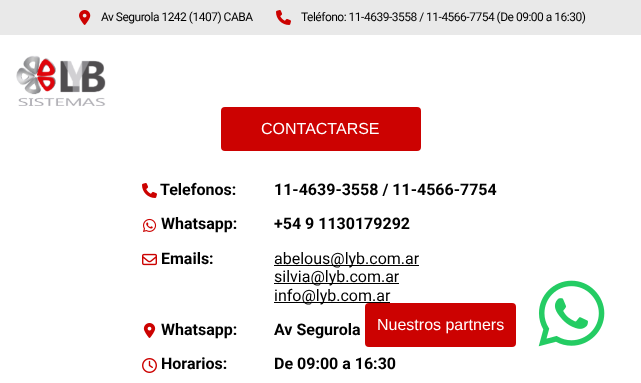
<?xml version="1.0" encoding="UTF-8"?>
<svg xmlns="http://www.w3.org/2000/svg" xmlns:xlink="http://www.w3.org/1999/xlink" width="641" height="383">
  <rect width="100%" height="100%" fill="#ffffff" />
  <rect width="641" height="35" fill="#e9e9e9" />
  <image x="79" y="10" width="12" height="15" xlink:href="image1.png" />
  <image x="276" y="10" width="15" height="15" xlink:href="image2.png" />
  <image x="16" y="55" width="90" height="51" xlink:href="image3.png" />
  <rect x="221" y="107" width="200" height="44" rx="4" fill="#cc0201" />
  <image x="142" y="183" width="15" height="15" xlink:href="image4.png" />
  <image x="143" y="218" width="14" height="14" xlink:href="image5.png" />
  <image x="142" y="253" width="15" height="13" xlink:href="image6.png" />
  <rect x="274" y="265" width="145" height="1" fill="#000000" />
  <rect x="274" y="283" width="125" height="1" fill="#000000" />
  <rect x="274" y="302" width="116" height="1" fill="#000000" />
  <image x="143" y="323" width="13" height="15" xlink:href="image7.png" />
  <image x="142" y="358" width="15" height="15" xlink:href="image8.png" />
  <image x="538" y="280" width="67" height="67" xlink:href="image9.png" />
  <text x="101" y="21" style="font-family: Roboto; font-size: 12px; letter-spacing: -0.5px; fill: #000000">Av Segurola 1242 (1407) CABA</text>
  <text x="301" y="21" style="font-family: Roboto; font-size: 12px; letter-spacing: -0.5px; fill: #000000">Teléfono: 11-4639-3558 / 11-4566-7754 (De 09:00 a 16:30)</text>
  <text x="261" y="134" style="font-family: Liberation Sans; font-size: 16px; fill: #ffffff">CONTACTARSE</text>
  <text x="160" y="195" style="font-family: Roboto; font-size: 16px; font-weight: bold; fill: #000000">Telefonos:</text>
  <text x="274" y="195" style="font-family: Roboto; font-size: 16px; font-weight: bold; fill: #000000">11-4639-3558 / 11-4566-7754</text>
  <text x="161" y="229" style="font-family: Roboto; font-size: 16px; font-weight: bold; fill: #000000">Whatsapp:</text>
  <text x="274" y="229" style="font-family: Roboto; font-size: 16px; font-weight: bold; fill: #000000">+54 9 1130179292</text>
  <text x="161" y="264" style="font-family: Roboto; font-size: 16px; font-weight: bold; fill: #000000">Emails:</text>
  <text x="274" y="264" style="font-family: Roboto; font-size: 16px; fill: #000000">abelous@lyb.com.ar</text>
  <text x="274" y="282" style="font-family: Roboto; font-size: 16px; fill: #000000">silvia@lyb.com.ar</text>
  <text x="274" y="301" style="font-family: Roboto; font-size: 16px; fill: #000000">info@lyb.com.ar</text>
  <text x="161" y="335" style="font-family: Roboto; font-size: 16px; font-weight: bold; fill: #000000">Whatsapp:</text>
  <text x="274" y="335" style="font-family: Roboto; font-size: 16px; font-weight: bold; fill: #000000">Av Segurola</text>
  <text x="161" y="369" style="font-family: Roboto; font-size: 16px; font-weight: bold; fill: #000000">Horarios:</text>
  <text x="274" y="369" style="font-family: Roboto; font-size: 16px; font-weight: bold; fill: #000000">De 09:00 a 16:30</text>
  <rect x="365" y="303" width="151" height="44" rx="4" fill="#cc0201" />
  <text x="377" y="330" style="font-family: Liberation Sans; font-size: 16px; fill: #ffffff">Nuestros partners</text>
</svg>
